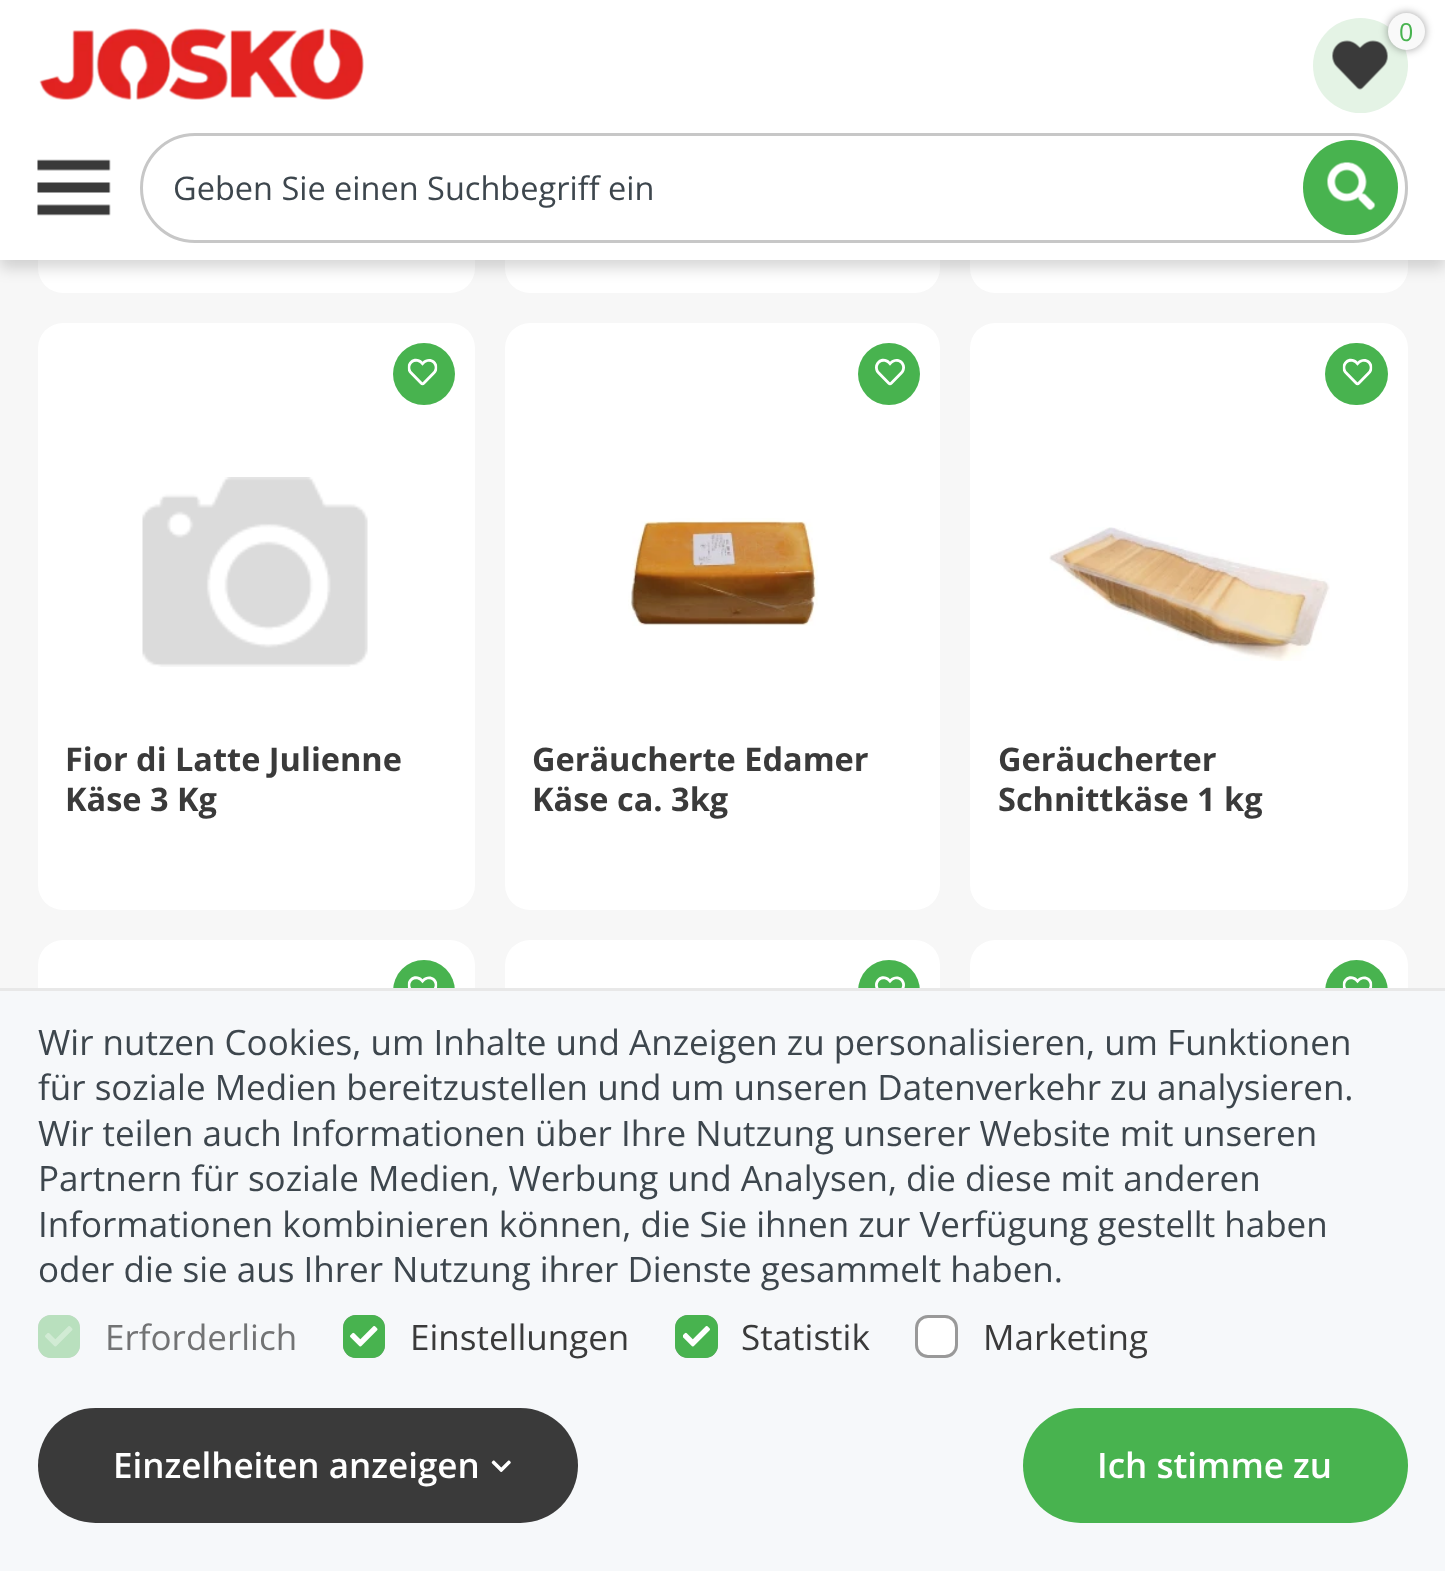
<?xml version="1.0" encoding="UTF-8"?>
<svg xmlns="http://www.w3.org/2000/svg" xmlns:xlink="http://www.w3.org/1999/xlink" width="1445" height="1571">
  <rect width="100%" height="100%" fill="#f7f7f7" />
  <rect x="38" y="-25" width="437" height="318" rx="25" fill="#ffffff" />
  <rect x="505" y="-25" width="435" height="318" rx="25" fill="#ffffff" />
  <rect x="970" y="-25" width="438" height="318" rx="25" fill="#ffffff" />
  <rect y="8" width="1445" height="260" fill="#000000" fill-opacity="0.16" filter="blur(7.5px)" />
  <rect width="1445" height="260" fill="#ffffff" />
  <image x="39" y="28" width="325" height="72" xlink:href="image1.png" />
  <circle cx="1360.5" cy="65.5" r="47.5" fill="#e4f3e5" />
  <image x="1332" y="40" width="56" height="50" xlink:href="image2.png" />
  <rect x="1388" y="13" width="37" height="37" rx="18.5" fill="#000000" fill-opacity="0.38" filter="blur(4px)" />
  <circle cx="1406.5" cy="31.5" r="18.5" fill="#f9f9f9" />
  <image x="37" y="159" width="74" height="57" xlink:href="image3.png" />
  <rect x="141.5" y="134.5" width="1265" height="107" rx="53.5" fill="none" stroke="#c7c7c7" stroke-width="3" />
  <circle cx="1350.5" cy="187.5" r="47.5" fill="#48b34f" />
  <image x="1327" y="162" width="49" height="49" xlink:href="image4.png" />
  <rect x="38" y="323" width="437" height="587" rx="25" fill="#ffffff" />
  <circle cx="424" cy="374" r="31" fill="#48b34f" />
  <image x="407" y="358" width="31" height="28" xlink:href="image5.png" />
  <image x="142" y="477" width="226" height="190" xlink:href="image6.png" />
  <rect x="505" y="323" width="435" height="587" rx="25" fill="#ffffff" />
  <circle cx="889" cy="374" r="31" fill="#48b34f" />
  <image x="875" y="358" width="30" height="28" xlink:href="image7.png" />
  <image x="628" y="518" width="190" height="108" xlink:href="image8.png" />
  <rect x="970" y="323" width="438" height="587" rx="25" fill="#ffffff" />
  <rect x="1325" y="343" width="63" height="62" rx="31" fill="#48b34f" />
  <image x="1342" y="358" width="31" height="28" xlink:href="image5.png" />
  <image x="1049" y="527" width="281" height="134" xlink:href="image9.png" />
  <rect x="38" y="940" width="437" height="585" rx="25" fill="#ffffff" />
  <rect x="393" y="960" width="62" height="63" rx="31" fill="#48b34f" />
  <image x="407" y="976" width="31" height="12" xlink:href="image10.png" />
  <rect x="505" y="940" width="435" height="585" rx="25" fill="#ffffff" />
  <rect x="858" y="960" width="62" height="63" rx="31" fill="#48b34f" />
  <image x="875" y="976" width="30" height="12" xlink:href="image11.png" />
  <rect x="970" y="940" width="438" height="585" rx="25" fill="#ffffff" />
  <circle cx="1356.5" cy="991.5" r="31.5" fill="#48b34f" />
  <image x="1342" y="976" width="31" height="12" xlink:href="image10.png" />
  <rect y="991" width="1445" height="580" fill="#f6f8fa" />
  <rect y="988" width="1445" height="3" fill="#e8e8e8" />
  <rect x="39.5" y="1316.5" width="39" height="40" rx="11.5" fill="none" stroke="#d5d7d8" stroke-width="3" />
  <rect x="38" y="1315" width="42" height="43" rx="13" fill="#b9e0be" />
  <image x="45" y="1326" width="28" height="21" xlink:href="image12.png" />
  <rect x="344.5" y="1316.5" width="39" height="40" rx="11.5" fill="none" stroke="#999999" stroke-width="3" />
  <rect x="343" y="1315" width="42" height="43" rx="13" fill="#48b34f" />
  <image x="350" y="1326" width="28" height="21" xlink:href="image13.png" />
  <rect x="676.5" y="1316.5" width="40" height="40" rx="11.5" fill="none" stroke="#999999" stroke-width="3" />
  <rect x="675" y="1315" width="43" height="43" rx="13" fill="#48b34f" />
  <image x="683" y="1326" width="27" height="21" xlink:href="image14.png" />
  <rect x="916.5" y="1316.5" width="40" height="40" rx="11.5" fill="#ffffff" stroke="#999999" stroke-width="3" />
  <rect x="38" y="1408" width="540" height="115" rx="57.5" fill="#3a3a3a" />
  <image x="491" y="1460" width="20" height="12" xlink:href="image15.png" />
  <rect x="1023" y="1408" width="385" height="115" rx="57.5" fill="#48b34f" />
  <text x="1399" y="41" style="font-family: Open Sans; font-size: 25px; fill: #48b34f">0</text>
  <text x="173" y="200" style="font-family: Open Sans; font-size: 32.5px; fill: #3d464d">Geben Sie einen Suchbegriff ein</text>
  <text x="65" y="771" style="font-family: Open Sans; font-size: 32.5px; font-weight: bold; fill: #3a3a3a">Fior di Latte Julienne</text>
  <text x="65" y="811" style="font-family: Open Sans; font-size: 32.5px; font-weight: bold; fill: #3a3a3a">Käse 3 Kg</text>
  <text x="532" y="771" style="font-family: Open Sans; font-size: 32.5px; font-weight: bold; fill: #3a3a3a">Geräucherte Edamer</text>
  <text x="532" y="811" style="font-family: Open Sans; font-size: 32.5px; font-weight: bold; fill: #3a3a3a">Käse ca. 3kg</text>
  <text x="998" y="771" style="font-family: Open Sans; font-size: 32.5px; font-weight: bold; fill: #3a3a3a">Geräucherter</text>
  <text x="998" y="811" style="font-family: Open Sans; font-size: 32.5px; font-weight: bold; fill: #3a3a3a">Schnittkäse 1 kg</text>
  <text x="38" y="1055" style="font-family: Open Sans; font-size: 35px; fill: #3d464d">Wir nutzen Cookies, um Inhalte und Anzeigen zu personalisieren, um Funktionen</text>
  <text x="38" y="1100" style="font-family: Open Sans; font-size: 35px; fill: #3d464d">für soziale Medien bereitzustellen und um unseren Datenverkehr zu analysieren.</text>
  <text x="38" y="1146" style="font-family: Open Sans; font-size: 35px; fill: #3d464d">Wir teilen auch Informationen über Ihre Nutzung unserer Website mit unseren</text>
  <text x="38" y="1191" style="font-family: Open Sans; font-size: 35px; fill: #3d464d">Partnern für soziale Medien, Werbung und Analysen, die diese mit anderen</text>
  <text x="38" y="1237" style="font-family: Open Sans; font-size: 35px; fill: #3d464d">Informationen kombinieren können, die Sie ihnen zur Verfügung gestellt haben</text>
  <text x="38" y="1282" style="font-family: Open Sans; font-size: 35px; fill: #3d464d">oder die sie aus Ihrer Nutzung ihrer Dienste gesammelt haben.</text>
  <text x="105" y="1350" style="font-family: Open Sans; font-size: 35px; fill: #727374">Erforderlich</text>
  <text x="410" y="1350" style="font-family: Open Sans; font-size: 35px; fill: #3a3a3a">Einstellungen</text>
  <text x="741" y="1350" style="font-family: Open Sans; font-size: 35px; fill: #3a3a3a">Statistik</text>
  <text x="983" y="1350" style="font-family: Open Sans; font-size: 35px; fill: #3a3a3a">Marketing</text>
  <text x="113" y="1478" style="font-family: Open Sans; font-size: 35px; font-weight: 600; fill: #ffffff">Einzelheiten anzeigen</text>
  <text x="1097" y="1478" style="font-family: Open Sans; font-size: 35px; font-weight: 600; fill: #ffffff">Ich stimme zu</text>
</svg>
